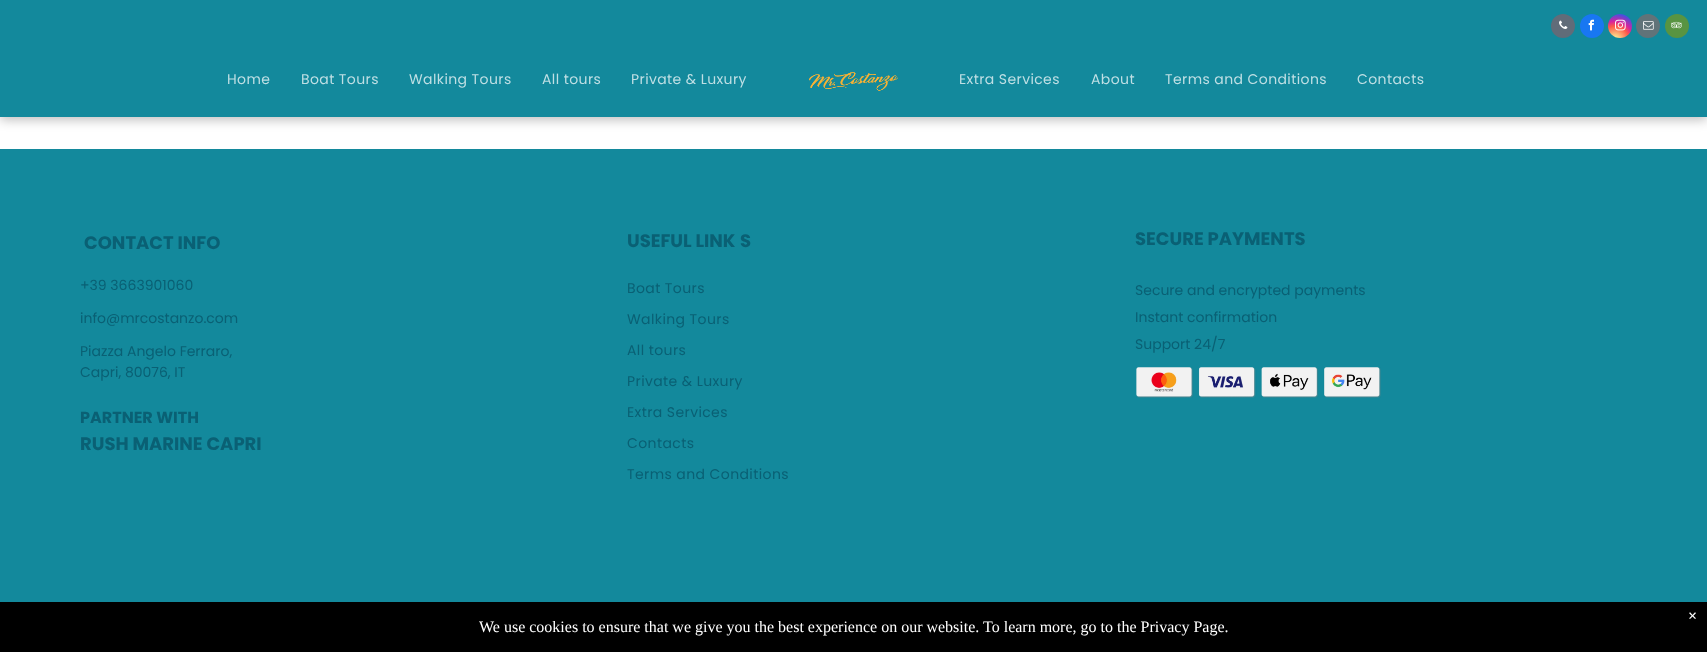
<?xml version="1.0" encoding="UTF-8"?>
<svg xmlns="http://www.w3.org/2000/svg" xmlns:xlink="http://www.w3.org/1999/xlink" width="1707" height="652">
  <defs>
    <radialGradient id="g1" gradientUnits="userSpaceOnUse" cx="1615" cy="40" r="31"><stop offset="0" stop-color="#fdf497" /><stop offset="0.05" stop-color="#fdf497" /><stop offset="0.45" stop-color="#fd5949" /><stop offset="0.6" stop-color="#d6249f" /><stop offset="0.9" stop-color="#285aeb" /></radialGradient>
  </defs>
  <rect width="100%" height="100%" fill="#ffffff" />
  <rect y="3" width="1707" height="117" fill="#000000" fill-opacity="0.25" filter="blur(5.5px)" />
  <rect width="1707" height="117" fill="#13899c" />
  <circle cx="1563" cy="26" r="12" fill="#616c79" />
  <image x="1559" y="20" width="9" height="9" xlink:href="image1.png" />
  <circle cx="1592" cy="26" r="12" fill="#1877f2" />
  <image x="1588" y="19" width="6" height="12" xlink:href="image2.png" />
  <circle cx="1620" cy="26" r="12" fill="url(#g1)" />
  <image x="1615" y="19" width="11" height="12" xlink:href="image3.png" />
  <circle cx="1648" cy="26" r="12" fill="#617379" />
  <image x="1643" y="21" width="11" height="9" xlink:href="image4.png" />
  <circle cx="1677" cy="26" r="12" fill="#589442" />
  <image x="1671" y="21" width="11" height="8" xlink:href="image5.png" />
  <image x="809" y="72" width="89" height="19" xlink:href="image6.png" />
  <rect y="149" width="1707" height="453" fill="#13899c" />
  <image x="1136" y="367" width="245" height="31" xlink:href="image7.png" />
  <rect y="602" width="1707" height="50" fill="#000000" />
  <text x="227" y="84" style="font-family: Poppins; font-size: 14px; letter-spacing: 0.4px; fill: #bfdfe4">Home</text>
  <text x="301" y="84" style="font-family: Poppins; font-size: 14px; letter-spacing: 0.4px; fill: #bfdfe4">Boat Tours</text>
  <text x="409" y="84" style="font-family: Poppins; font-size: 14px; letter-spacing: 0.4px; fill: #bfdfe4">Walking Tours</text>
  <text x="542" y="84" style="font-family: Poppins; font-size: 14px; letter-spacing: 0.4px; fill: #bfdfe4">All tours</text>
  <text x="631" y="84" style="font-family: Poppins; font-size: 14px; letter-spacing: 0.4px; fill: #bfdfe4">Private &amp; Luxury</text>
  <text x="959" y="84" style="font-family: Poppins; font-size: 14px; letter-spacing: 0.4px; fill: #bfdfe4">Extra Services</text>
  <text x="1091" y="84" style="font-family: Poppins; font-size: 14px; letter-spacing: 0.4px; fill: #bfdfe4">About</text>
  <text x="1165" y="84" style="font-family: Poppins; font-size: 14px; letter-spacing: 0.4px; fill: #bfdfe4">Terms and Conditions</text>
  <text x="1357" y="84" style="font-family: Poppins; font-size: 14px; letter-spacing: 0.4px; fill: #bfdfe4">Contacts</text>
  <text x="84" y="249" style="font-family: Poppins; font-size: 18px; font-weight: bold; fill: #0a6074">CONTACT INFO</text>
  <text x="80" y="290" style="font-family: Poppins; font-size: 14px; fill: #0a6074">+39 3663901060</text>
  <text x="80" y="323" style="font-family: Poppins; font-size: 14px; fill: #0a6074">info@mrcostanzo.com</text>
  <text x="80" y="356" style="font-family: Poppins; font-size: 14px; fill: #0a6074">Piazza Angelo Ferraro,</text>
  <text x="80" y="377" style="font-family: Poppins; font-size: 14px; fill: #0a6074">Capri, 80076, IT</text>
  <text x="80" y="423" style="font-family: Poppins; font-size: 16px; font-weight: bold; fill: #0a6074">PARTNER WITH</text>
  <text x="80" y="450" style="font-family: Poppins; font-size: 18px; font-weight: bold; fill: #0a6074">RUSH MARINE CAPRI</text>
  <text x="627" y="247" style="font-family: Poppins; font-size: 18px; font-weight: bold; fill: #0a6074">USEFUL LINK</text>
  <text x="740" y="247" style="font-family: Poppins; font-size: 18px; font-weight: bold; fill: #0a6074">S</text>
  <text x="627" y="293" style="font-family: Poppins; font-size: 14px; letter-spacing: 0.4px; fill: #0a6074">Boat Tours</text>
  <text x="627" y="324" style="font-family: Poppins; font-size: 14px; letter-spacing: 0.4px; fill: #0a6074">Walking Tours</text>
  <text x="627" y="355" style="font-family: Poppins; font-size: 14px; letter-spacing: 0.4px; fill: #0a6074">All tours</text>
  <text x="627" y="386" style="font-family: Poppins; font-size: 14px; letter-spacing: 0.4px; fill: #0a6074">Private &amp; Luxury</text>
  <text x="627" y="417" style="font-family: Poppins; font-size: 14px; letter-spacing: 0.4px; fill: #0a6074">Extra Services</text>
  <text x="627" y="448" style="font-family: Poppins; font-size: 14px; letter-spacing: 0.4px; fill: #0a6074">Contacts</text>
  <text x="627" y="479" style="font-family: Poppins; font-size: 14px; letter-spacing: 0.4px; fill: #0a6074">Terms and Conditions</text>
  <text x="1135" y="245" style="font-family: Poppins; font-size: 18px; font-weight: bold; fill: #0a6074">SECURE PAYMENTS</text>
  <text x="1135" y="295" style="font-family: Poppins; font-size: 14px; fill: #0a6074">Secure and encrypted payments</text>
  <text x="1135" y="322" style="font-family: Poppins; font-size: 14px; fill: #0a6074">Instant confirmation</text>
  <text x="1135" y="349" style="font-family: Poppins; font-size: 14px; fill: #0a6074">Support 24/7</text>
  <text x="1688" y="621" style="font-family: Liberation Serif; font-size: 16px; font-weight: bold; fill: #ffffff">×</text>
  <text x="479" y="632" style="font-family: Liberation Serif; font-size: 16px; fill: #ffffff">We use cookies to ensure that we give you the best experience on our website. To learn more, go to the Privacy Page.</text>
</svg>
